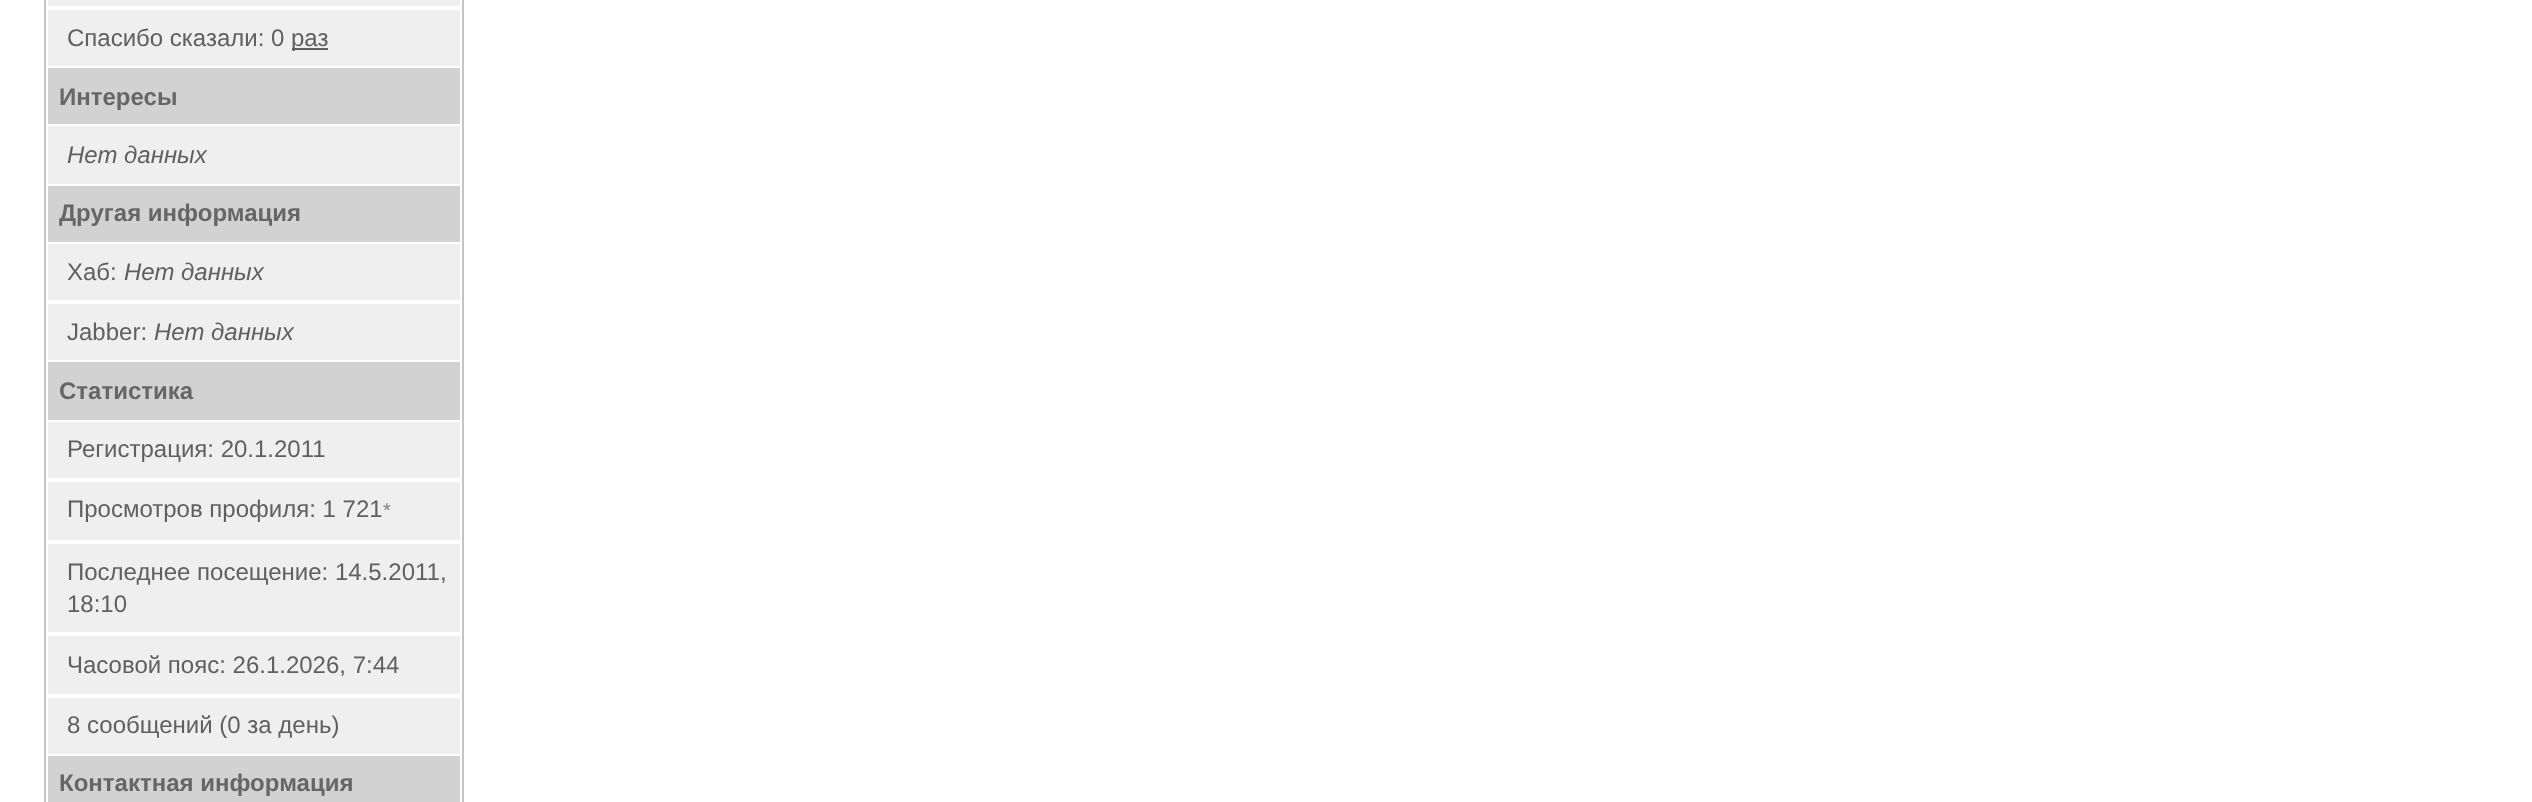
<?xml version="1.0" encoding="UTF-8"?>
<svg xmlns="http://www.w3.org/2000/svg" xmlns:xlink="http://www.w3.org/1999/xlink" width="2532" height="802">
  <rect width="100%" height="100%" fill="#ffffff" />
  <rect x="45" y="-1" width="418" height="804" fill="none" stroke="#c4c4c4" stroke-width="2" />
  <rect x="48" width="412" height="6" fill="#efefef" />
  <rect x="48" y="10" width="412" height="56" fill="#efefef" />
  <rect x="292" y="48" width="36" height="2" fill="#606060" />
  <rect x="48" y="68" width="412" height="56" fill="#d2d2d2" />
  <rect x="48" y="126" width="412" height="58" fill="#efefef" />
  <rect x="48" y="186" width="412" height="56" fill="#d2d2d2" />
  <rect x="48" y="244" width="412" height="56" fill="#efefef" />
  <rect x="48" y="304" width="412" height="56" fill="#efefef" />
  <rect x="48" y="362" width="412" height="58" fill="#d2d2d2" />
  <rect x="48" y="422" width="412" height="56" fill="#efefef" />
  <rect x="48" y="482" width="412" height="58" fill="#efefef" />
  <rect x="48" y="544" width="412" height="88" fill="#efefef" />
  <rect x="48" y="636" width="412" height="58" fill="#efefef" />
  <rect x="48" y="698" width="412" height="56" fill="#efefef" />
  <rect x="48" y="756" width="412" height="46" fill="#d2d2d2" />
  <text x="67" y="46" style="font-family: Liberation Sans; font-size: 24px; fill: #606060">Спасибо сказали: 0</text>
  <text x="291" y="46" style="font-family: Liberation Sans; font-size: 24px; fill: #606060">раз</text>
  <text x="59" y="105" style="font-family: Liberation Sans; font-size: 24px; font-weight: bold; fill: #666666">Интересы</text>
  <text x="67" y="163" style="font-family: Liberation Sans; font-size: 24px; font-style: italic; fill: #606060">Нет данных</text>
  <text x="59" y="221" style="font-family: Liberation Sans; font-size: 24px; font-weight: bold; fill: #666666">Другая информация</text>
  <text x="67" y="280" style="font-family: Liberation Sans; font-size: 24px; fill: #606060">Хаб:</text>
  <text x="124" y="280" style="font-family: Liberation Sans; font-size: 24px; font-style: italic; fill: #606060">Нет данных</text>
  <text x="67" y="340" style="font-family: Liberation Sans; font-size: 24px; fill: #606060">Jabber:</text>
  <text x="154" y="340" style="font-family: Liberation Sans; font-size: 24px; font-style: italic; fill: #606060">Нет данных</text>
  <text x="59" y="399" style="font-family: Liberation Sans; font-size: 24px; font-weight: bold; fill: #666666">Статистика</text>
  <text x="67" y="457" style="font-family: Liberation Sans; font-size: 24px; fill: #606060">Регистрация: 20.1.2011</text>
  <text x="67" y="517" style="font-family: Liberation Sans; font-size: 24px; fill: #606060">Просмотров профиля: 1 721</text>
  <text x="383" y="517" style="font-family: Liberation Sans; font-size: 20px; fill: #808080">*</text>
  <text x="67" y="580" style="font-family: Liberation Sans; font-size: 24px; fill: #606060">Последнее посещение: 14.5.2011,</text>
  <text x="67" y="612" style="font-family: Liberation Sans; font-size: 24px; fill: #606060">18:10</text>
  <text x="67" y="673" style="font-family: Liberation Sans; font-size: 24px; fill: #606060">Часовой пояс: 26.1.2026, 7:44</text>
  <text x="67" y="733" style="font-family: Liberation Sans; font-size: 24px; fill: #606060">8 сообщений (0 за день)</text>
  <text x="59" y="791" style="font-family: Liberation Sans; font-size: 24px; font-weight: bold; fill: #666666">Контактная информация</text>
</svg>
